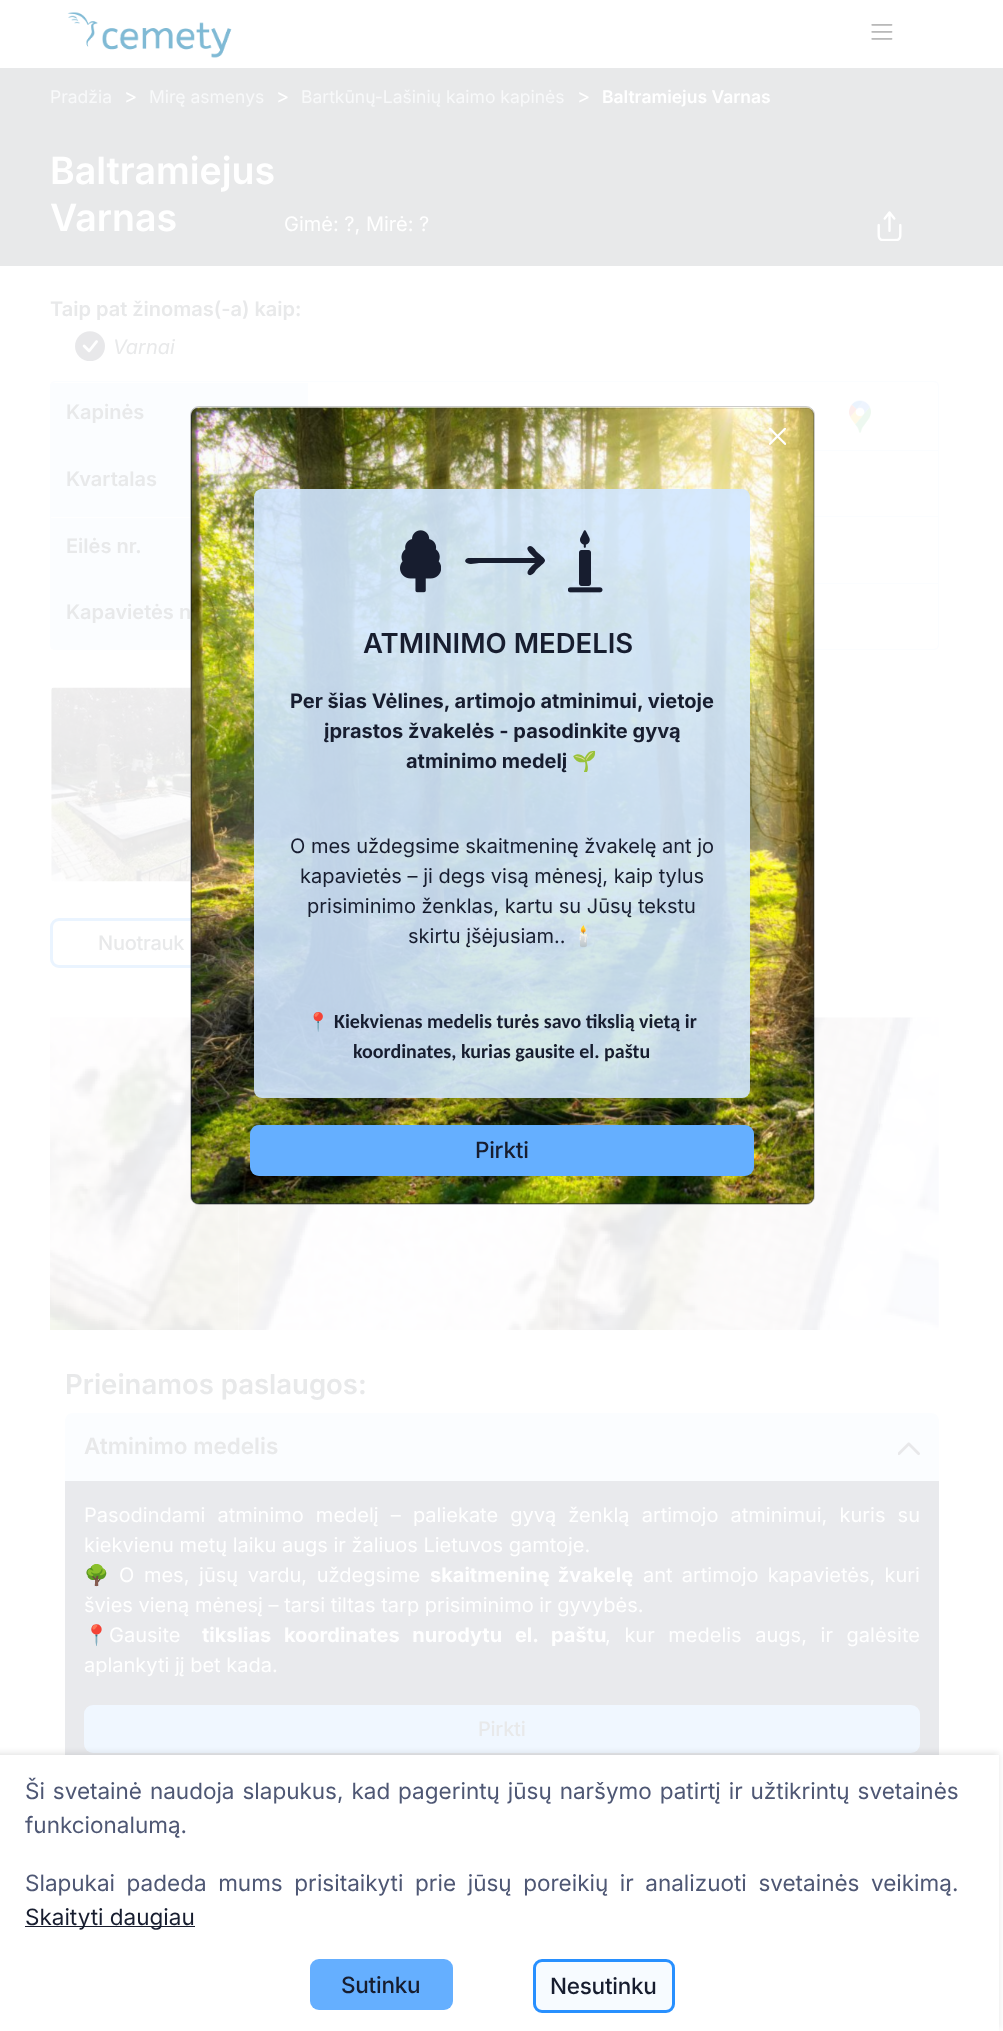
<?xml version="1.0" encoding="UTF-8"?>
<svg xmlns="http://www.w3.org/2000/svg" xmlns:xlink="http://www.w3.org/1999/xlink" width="1003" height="2031">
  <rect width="100%" height="100%" fill="#ffffff" />
  <image x="67" y="12" width="165" height="46" xlink:href="image1.png" />
  <image x="871" y="24" width="22" height="16" xlink:href="image2.png" />
  <rect y="68" width="1003" height="198" fill="#e8e9ea" />
  <image x="877" y="211" width="25" height="30" xlink:href="image3.png" />
  <image x="75" y="331" width="30" height="30" xlink:href="image4.png" />
  <rect x="50.5" y="381.5" width="888" height="268" rx="4.5" fill="none" stroke="#fbfdff" />
  <rect x="51" y="383" width="257" height="67" fill="#fbfdff" />
  <rect x="51" y="450" width="140" height="67" fill="#fbfdff" />
  <rect x="814" y="450" width="124" height="1" fill="#fbfdff" />
  <image x="849" y="400" width="22" height="33" xlink:href="image5.png" />
  <rect x="814" y="516" width="124" height="1" fill="#fbfdff" />
  <rect x="51" y="518" width="140" height="131" fill="#fbfdff" />
  <rect x="814" y="583" width="124" height="1" fill="#fbfdff" />
  <image x="51" y="687" width="140" height="195" xlink:href="image6.png" />
  <rect x="51.5" y="919.5" width="427" height="47" rx="7.5" fill="none" stroke="#eaf4ff" stroke-width="3" />
  <image x="50" y="1017" width="141" height="118" xlink:href="image7.png" />
  <image x="814" y="1017" width="65" height="118" xlink:href="image8.png" />
  <image x="878" y="1017" width="61" height="118" xlink:href="image9.png" />
  <image x="238" y="1204" width="321" height="126" xlink:href="image11.png" />
  <image x="50" y="1135" width="189" height="195" xlink:href="image10.png" />
  <image x="558" y="1135" width="321" height="195" xlink:href="image12.png" />
  <image x="879" y="1135" width="60" height="195" xlink:href="image13.png" />
  <path d="M 73 1413 h 858 c 4.5 0 8 3.5 8 8 v 60 h -874 v -60 c 0 -4.5 3.5 -8 8 -8 z" fill="#fbfdff" />
  <image x="898" y="1442" width="22" height="14" xlink:href="image14.png" />
  <rect x="65" y="1481" width="874" height="274" fill="#e9eaed" />
  <rect x="84" y="1705" width="836" height="48" rx="9" fill="#f0f7ff" />
  <rect x="191" y="408" width="623" height="796" rx="8" fill="#171d2f" />
  <rect x="-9" y="1753" width="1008" height="276" fill="#000000" fill-opacity="0.1" filter="blur(3px)" />
  <rect y="1755" width="999" height="276" fill="#ffffff" />
  <rect x="25" y="1926" width="170" height="1" fill="#171d2f" />
  <rect x="310" y="1959" width="143" height="51" rx="9" fill="#65afff" />
  <rect x="534.5" y="1960.5" width="139" height="51" rx="7.5" fill="#f7fbff" stroke="#2890ff" stroke-width="3" />
  <text x="50" y="103" style="font-family: Inter; font-size: 17.5px; fill: #f8f9fa">Pradžia</text>
  <text x="124" y="103" style="font-family: Inter; font-size: 20px; fill: #ffffff">&gt;</text>
  <text x="149" y="103" style="font-family: Inter; font-size: 17.5px; fill: #f8f9fa">Mirę asmenys</text>
  <text x="276" y="103" style="font-family: Inter; font-size: 20px; fill: #ffffff">&gt;</text>
  <text x="301" y="103" style="font-family: Inter; font-size: 17.5px; fill: #f8f9fa">Bartkūnų-Lašinių kaimo kapinės</text>
  <text x="577" y="103" style="font-family: Inter; font-size: 20px; fill: #ffffff">&gt;</text>
  <text x="602" y="103" style="font-family: Inter; font-size: 17.5px; font-weight: 600; fill: #ffffff">Baltramiejus Varnas</text>
  <text x="50" y="184" style="font-family: Inter; font-size: 37.5px; font-weight: 600; fill: #ffffff">Baltramiejus</text>
  <text x="50" y="231" style="font-family: Inter; font-size: 37.5px; font-weight: 600; fill: #ffffff">Varnas</text>
  <text x="284" y="231" style="font-family: Inter; font-size: 20px; fill: #ffffff">Gimė: ?, Mirė: ?</text>
  <text x="50" y="316" style="font-family: Inter; font-size: 20px; font-weight: 600; fill: #e8e9ea">Taip pat žinomas(-a) kaip:</text>
  <text x="113" y="354" style="font-family: Inter; font-size: 20px; font-style: italic; fill: #e8e9ea">Varnai</text>
  <text x="66" y="419" style="font-family: Inter; font-size: 20px; font-weight: 600; fill: #e8e9ea">Kapinės</text>
  <text x="66" y="486" style="font-family: Inter; font-size: 20px; font-weight: 600; fill: #e8e9ea">Kvartalas</text>
  <text x="66" y="553" style="font-family: Inter; font-size: 20px; font-weight: 600; fill: #e8e9ea">Eilės nr.</text>
  <text x="66" y="619" style="font-family: Inter; font-size: 20px; font-weight: 600; fill: #e8e9ea">Kapavietės n</text>
  <text x="98" y="950" style="font-family: Inter; font-size: 20px; font-weight: 500; letter-spacing: -0.25px; fill: #e8e9ea">Nuotrauk</text>
  <text x="65" y="1394" style="font-family: Inter; font-size: 27.5px; font-weight: 600; fill: #e8e9ea">Prieinamos paslaugos:</text>
  <text x="84" y="1454" style="font-family: Inter; font-size: 22.5px; font-weight: 600; fill: #e8e9ea">Atminimo medelis</text>
  <text x="84" y="1522" word-spacing="6.5" style="font-family: Inter; font-size: 20px; fill: #ffffff">Pasodindami atminimo medelį – paliekate gyvą ženklą artimojo atminimui, kuris su</text>
  <text x="84" y="1552" style="font-family: Inter; font-size: 20px; fill: #ffffff">kiekvienu metų laiku augs ir žaliuos Lietuvos gamtoje.</text>
  <text x="84" y="1582" style="font-family: Noto Color Emoji; font-size: 20px; fill: #ffffff">🌳</text>
  <text x="119" y="1582" word-spacing="4" style="font-family: Inter; font-size: 20px; fill: #ffffff">O mes, jūsų vardu, uždegsime</text>
  <text x="430" y="1582" word-spacing="3.5" style="font-family: Inter; font-size: 20px; font-weight: bold; fill: #ffffff">skaitmeninę žvakelę</text>
  <text x="643" y="1582" word-spacing="3.5" style="font-family: Inter; font-size: 20px; fill: #ffffff">ant artimojo kapavietės, kuri</text>
  <text x="84" y="1612" style="font-family: Inter; font-size: 20px; fill: #ffffff">švies vieną mėnesį – tarsi tiltas tarp prisiminimo ir gyvybės.</text>
  <text x="84" y="1642" style="font-family: Noto Color Emoji; font-size: 20px; fill: #ffffff">📍</text>
  <text x="109" y="1642" style="font-family: Inter; font-size: 20px; fill: #ffffff">Gausite</text>
  <text x="202" y="1642" word-spacing="8" style="font-family: Inter; font-size: 20px; font-weight: bold; fill: #ffffff">tikslias koordinates nurodytu el. paštu</text>
  <text x="605" y="1642" word-spacing="8" style="font-family: Inter; font-size: 20px; fill: #ffffff">, kur medelis augs, ir galėsite</text>
  <text x="84" y="1672" style="font-family: Inter; font-size: 20px; fill: #ffffff">aplankyti jį bet kada.</text>
  <text x="478" y="1736" style="font-family: Inter; font-size: 20px; font-weight: 500; letter-spacing: -0.25px; fill: #e8e9ea">Pirkti</text>
  <image x="190" y="407" width="624" height="798" xlink:href="image15.png" />
  <rect x="190.5" y="406.5" width="624" height="798" rx="8.5" fill="none" stroke="#000000" stroke-opacity="0.2" />
  <image x="769" y="428" width="17" height="17" xlink:href="image16.png" />
  <rect x="254" y="489" width="496" height="609" rx="8" fill="#d1e7ff" fill-opacity="0.9" />
  <image x="400" y="530" width="41" height="63" xlink:href="image17.png" />
  <path d="M 528 547 c 3 -3 7 2 8 4 c 12 11 12 8 0 19 c -1 2 -4 6 -7 5 c -5 -3 4 -10 6 -12 h -56 c -3 0 -12 3 -14 -2 l 1 -2 l 2 -1 h 67 c -2 -2 -10 -8 -7 -11 z" fill="#171d2f" fill-rule="evenodd" />
  <image x="568" y="530" width="35" height="63" xlink:href="image18.png" />
  <text x="363" y="653" style="font-family: Inter; font-size: 27.5px; font-weight: 600; fill: #171d2f">ATMINIMO MEDELIS</text>
  <text x="290" y="708" style="font-family: Inter; font-size: 20px; font-weight: bold; fill: #171d2f">Per šias Vėlines, artimojo atminimui, vietoje</text>
  <text x="324" y="738" style="font-family: Inter; font-size: 20px; font-weight: bold; fill: #171d2f">įprastos žvakelės - pasodinkite gyvą</text>
  <text x="406" y="768" style="font-family: Inter; font-size: 20px; font-weight: bold; fill: #171d2f">atminimo medelį</text>
  <text x="572" y="768" style="font-family: Noto Color Emoji; font-size: 20px; font-weight: bold; fill: #171d2f">🌱</text>
  <text x="290" y="853" style="font-family: Inter; font-size: 20px; fill: #171d2f">O mes uždegsime skaitmeninę žvakelę ant jo</text>
  <text x="300" y="883" style="font-family: Inter; font-size: 20px; fill: #171d2f">kapavietės – ji degs visą mėnesį, kaip tylus</text>
  <text x="307" y="913" style="font-family: Inter; font-size: 20px; fill: #171d2f">prisiminimo ženklas, kartu su Jūsų tekstu</text>
  <text x="408" y="943" style="font-family: Inter; font-size: 20px; fill: #171d2f">skirtu įšėjusiam..</text>
  <text x="571" y="943" style="font-family: Noto Color Emoji; font-size: 20px; fill: #171d2f">🕯️</text>
  <text x="307" y="1028" style="font-family: Noto Color Emoji; font-size: 18px; font-weight: bold; fill: #171d2f">📍</text>
  <text x="334" y="1028" style="font-family: Carlito; font-size: 20px; font-weight: bold; fill: #171d2f">Kiekvienas medelis turės savo tikslią vietą ir</text>
  <text x="353" y="1058" style="font-family: Carlito; font-size: 20px; font-weight: bold; fill: #171d2f">koordinates, kurias gausite el. paštu</text>
  <rect x="250" y="1125" width="504" height="51" rx="9" fill="#65afff" />
  <text x="475" y="1158" style="font-family: Inter; font-size: 22.5px; font-weight: 500; letter-spacing: -0.25px; fill: #171d2f">Pirkti</text>
  <text x="25" y="1799" word-spacing="1.6" style="font-family: Inter; font-size: 22.5px; fill: #4e5774">Ši svetainė naudoja slapukus, kad pagerintų jūsų naršymo patirtį ir užtikrintų svetainės</text>
  <text x="25" y="1833" style="font-family: Inter; font-size: 22.5px; fill: #4e5774">funkcionalumą.</text>
  <text x="25" y="1891" word-spacing="5.25" style="font-family: Inter; font-size: 22.5px; fill: #4e5774">Slapukai padeda mums prisitaikyti prie jūsų poreikių ir analizuoti svetainės veikimą.</text>
  <text x="25" y="1925" style="font-family: Inter; font-size: 22.5px; fill: #171d2f">Skaityti daugiau</text>
  <text x="341" y="1993" style="font-family: Inter; font-size: 22.5px; font-weight: 500; letter-spacing: -0.25px; fill: #171d2f">Sutinku</text>
  <text x="550" y="1994" style="font-family: Inter; font-size: 22.5px; font-weight: 500; letter-spacing: -0.25px; fill: #171d2f">Nesutinku</text>
</svg>
